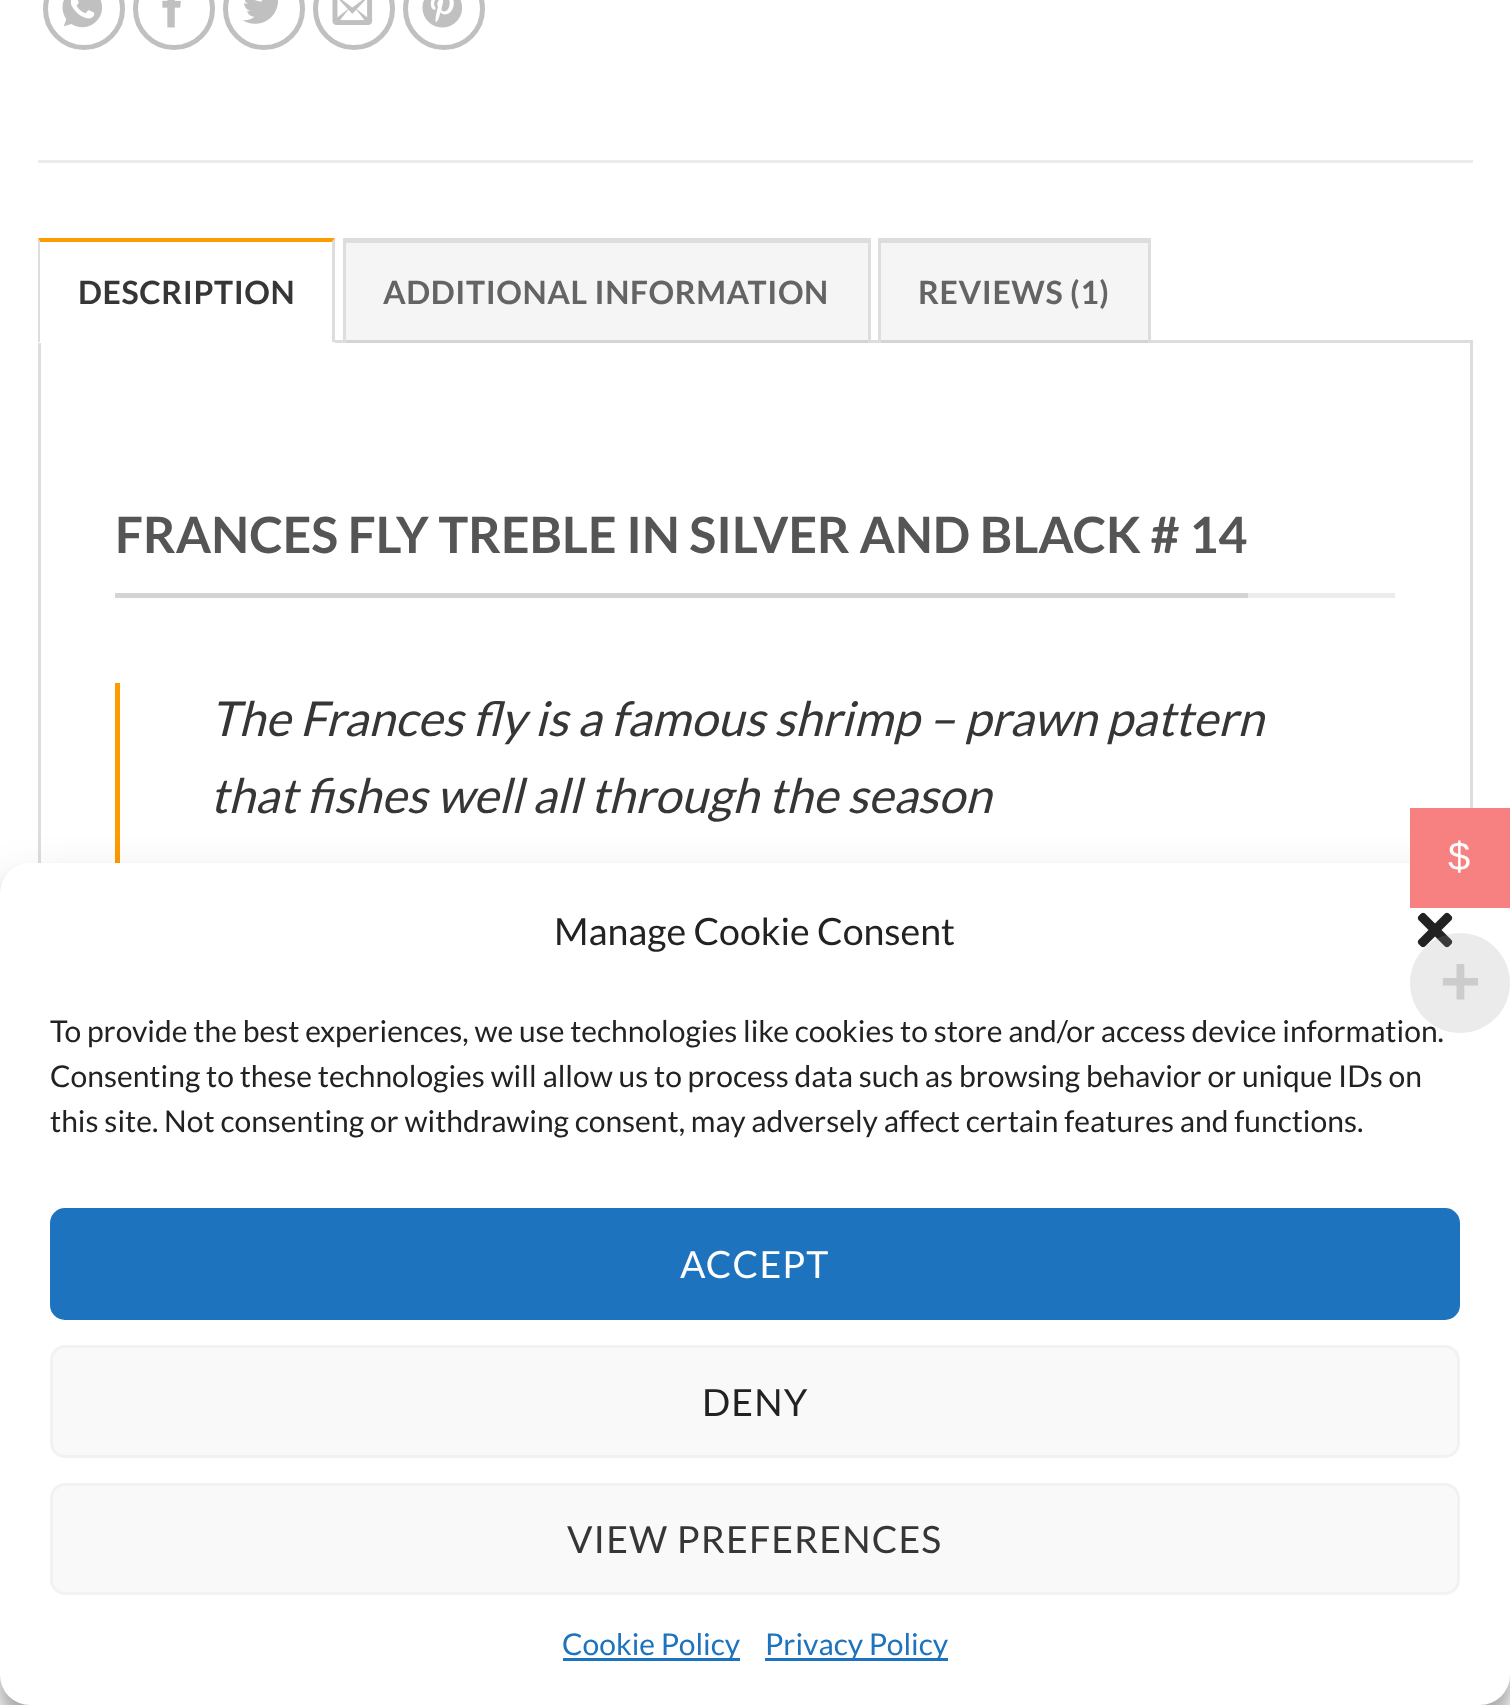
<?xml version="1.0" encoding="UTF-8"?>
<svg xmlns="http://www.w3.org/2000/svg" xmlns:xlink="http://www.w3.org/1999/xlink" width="1510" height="1705">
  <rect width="100%" height="100%" fill="#ffffff" />
  <circle cx="84" cy="9" r="38.5" fill="none" stroke="#c0c0c0" stroke-width="5" />
  <image x="62" y="0" width="40" height="28" xlink:href="image1.png" />
  <circle cx="174" cy="9" r="38.5" fill="none" stroke="#c0c0c0" stroke-width="5" />
  <image x="162" y="0" width="19" height="28" xlink:href="image2.png" />
  <circle cx="264" cy="9" r="38.5" fill="none" stroke="#c0c0c0" stroke-width="5" />
  <image x="243" y="0" width="35" height="24" xlink:href="image3.png" />
  <circle cx="354" cy="9" r="38.5" fill="none" stroke="#c0c0c0" stroke-width="5" />
  <image x="332" y="0" width="41" height="25" xlink:href="image4.png" />
  <circle cx="444" cy="9" r="38.5" fill="none" stroke="#c0c0c0" stroke-width="5" />
  <image x="422" y="0" width="40" height="28" xlink:href="image5.png" />
  <rect x="38" y="160" width="1435" height="3" fill="#ececec" />
  <rect x="39.5" y="341.5" width="1432" height="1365" fill="none" stroke="#dddddd" stroke-width="3" />
  <rect x="38" y="340" width="297" height="3" fill="#ffffff" />
  <path d="M 38 238 h 297 l -3 4 h -292 z" fill="#fc9c00" />
  <path d="M 335 238 v 104 h -3 v -100 z" fill="#dddddd" />
  <path d="M 38 342 v -104 l 2 4 v 100 z" fill="#dddddd" />
  <rect x="346" y="243" width="522" height="100" fill="#000000" fill-opacity="0.04" />
  <rect x="343" y="238" width="527" height="5" fill="#dddddd" />
  <rect x="868" y="238" width="3" height="105" fill="#dddddd" />
  <rect x="343" y="238" width="3" height="105" fill="#dddddd" />
  <rect x="881" y="243" width="267" height="100" fill="#000000" fill-opacity="0.04" />
  <rect x="878" y="238" width="272" height="5" fill="#dddddd" />
  <rect x="1148" y="238" width="3" height="105" fill="#dddddd" />
  <rect x="878" y="238" width="3" height="105" fill="#dddddd" />
  <rect x="1248" y="593" width="147" height="5" fill="#ececec" />
  <rect x="115" y="593" width="1133" height="5" fill="#d4d4d4" />
  <rect x="115" y="683" width="5" height="180" fill="#fc9c00" />
  <rect y="878" width="1510" height="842" rx="30" fill="#000000" fill-opacity="0.23" filter="blur(7.5px)" />
  <rect y="888" width="1510" height="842" rx="30" fill="#000000" fill-opacity="0.19" filter="blur(25px)" />
  <rect y="863" width="1510" height="842" rx="30" fill="#ffffff" />
  <image x="1417" y="912" width="36" height="36" xlink:href="image6.png" />
  <rect x="51.5" y="1209.5" width="1407" height="109" rx="13.5" fill="#1e73be" stroke="#1e73be" stroke-width="3" />
  <rect x="51.5" y="1346.5" width="1407" height="110" rx="13.5" fill="#f9f9f9" stroke="#f2f2f2" stroke-width="3" />
  <rect x="51.5" y="1484.5" width="1407" height="109" rx="13.5" fill="#f9f9f9" stroke="#f2f2f2" stroke-width="3" />
  <rect x="563" y="1658" width="177" height="3" fill="#1e73be" />
  <rect x="765" y="1658" width="183" height="3" fill="#1e73be" />
  <rect x="1410" y="808" width="100" height="100" fill="#f78080" />
  <text x="78" y="304" style="font-family: Lato; font-size: 32px; font-weight: bold; letter-spacing: 0.6px; fill: #363636">DESCRIPTION</text>
  <text x="383" y="304" style="font-family: Lato; font-size: 32px; font-weight: bold; letter-spacing: 0.6px; fill: #646464">ADDITIONAL INFORMATION</text>
  <text x="918" y="304" style="font-family: Lato; font-size: 32px; font-weight: bold; letter-spacing: 0.6px; fill: #646464">REVIEWS (1)</text>
  <text x="115" y="553" style="font-family: Lato; font-size: 50px; font-weight: bold; fill: #555555">FRANCES FLY TREBLE IN SILVER AND BLACK # 14</text>
  <text x="210" y="736" style="font-family: Lato; font-size: 48px; font-style: italic; fill: #363636">The Frances fly is a famous shrimp – prawn pattern</text>
  <text x="210" y="813" style="font-family: Lato; font-size: 48px; font-style: italic; fill: #363636">that fishes well all through the season</text>
  <text x="554" y="945" style="font-family: Lato; font-size: 37.5px; fill: #222222">Manage Cookie Consent</text>
  <text x="50" y="1042" style="font-family: Lato; font-size: 30px; fill: #222222">To provide the best experiences, we use technologies like cookies to store and/or access device information.</text>
  <text x="50" y="1087" style="font-family: Lato; font-size: 30px; fill: #222222">Consenting to these technologies will allow us to process data such as browsing behavior or unique IDs on</text>
  <text x="50" y="1132" style="font-family: Lato; font-size: 30px; fill: #222222">this site. Not consenting or withdrawing consent, may adversely affect certain features and functions.</text>
  <text x="680" y="1278" style="font-family: Lato; font-size: 37.5px; letter-spacing: 1.1px; fill: #ffffff">ACCEPT</text>
  <text x="702" y="1416" style="font-family: Lato; font-size: 37.5px; letter-spacing: 1.1px; fill: #222222">DENY</text>
  <text x="567" y="1553" style="font-family: Lato; font-size: 37.5px; letter-spacing: 1.1px; fill: #363636">VIEW PREFERENCES</text>
  <text x="562" y="1655" style="font-family: Lato; font-size: 30px; fill: #1e73be">Cookie Policy</text>
  <text x="765" y="1655" style="font-family: Lato; font-size: 30px; fill: #1e73be">Privacy Policy</text>
  <text x="1448" y="870" style="font-family: Liberation Sans; font-size: 40px; letter-spacing: 2px; fill: #ffffff">$</text>
  <circle cx="1460" cy="983" r="50" fill="#999999" fill-opacity="0.2" />
  <text x="1440" y="1005" style="font-family: Liberation Sans; font-size: 70px; font-weight: bold; fill: #cccccc">+</text>
</svg>
